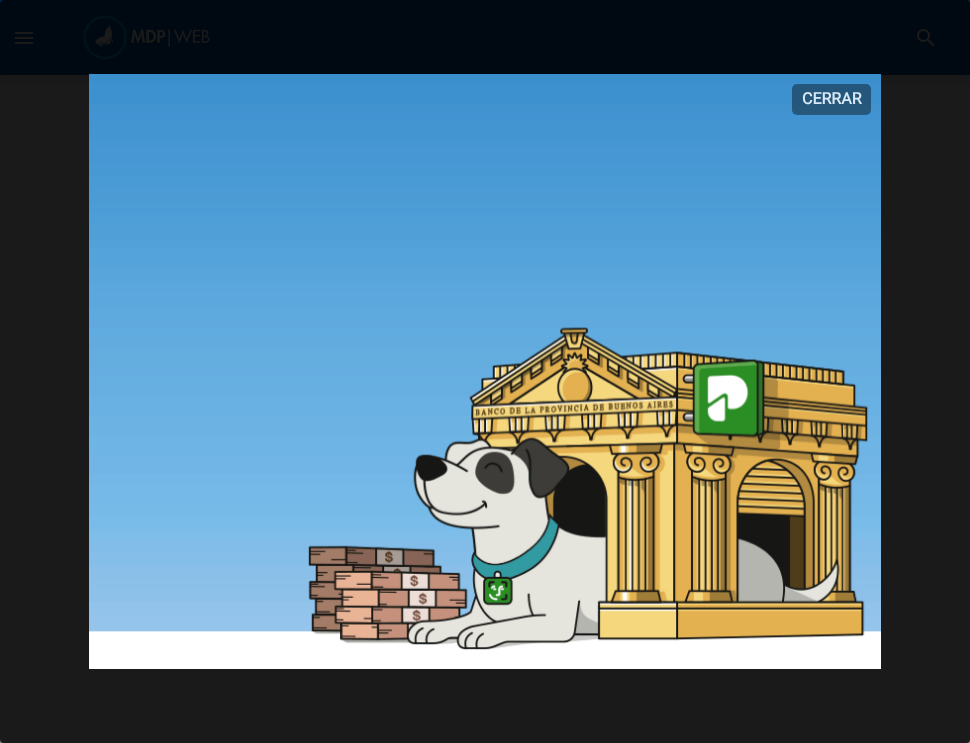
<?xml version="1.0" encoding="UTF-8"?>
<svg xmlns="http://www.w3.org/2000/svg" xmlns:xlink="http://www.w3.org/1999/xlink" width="970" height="743">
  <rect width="100%" height="100%" fill="#808080" />
  <rect y="1" width="970" height="75" fill="#000000" fill-opacity="0.1" filter="blur(5px)" />
  <rect width="970" height="75" fill="#002d5a" />
  <image x="15" y="32" width="18" height="12" xlink:href="image1.png" />
  <image x="83" y="15" width="127" height="45" xlink:href="image2.png" />
  <image x="917" y="29" width="18" height="18" xlink:href="image3.png" />
  <rect width="970" height="743" rx="4" fill="#000000" fill-opacity="0.8" />
  <image x="89" y="74" width="792" height="595" xlink:href="image4.png" />
  <rect x="792" y="84" width="79" height="31" rx="5" fill="#000000" fill-opacity="0.4" />
  <text x="802" y="104" style="font-family: Heebo; font-size: 16px; font-weight: bold; fill: #d8e9f5">CERRAR</text>
</svg>
